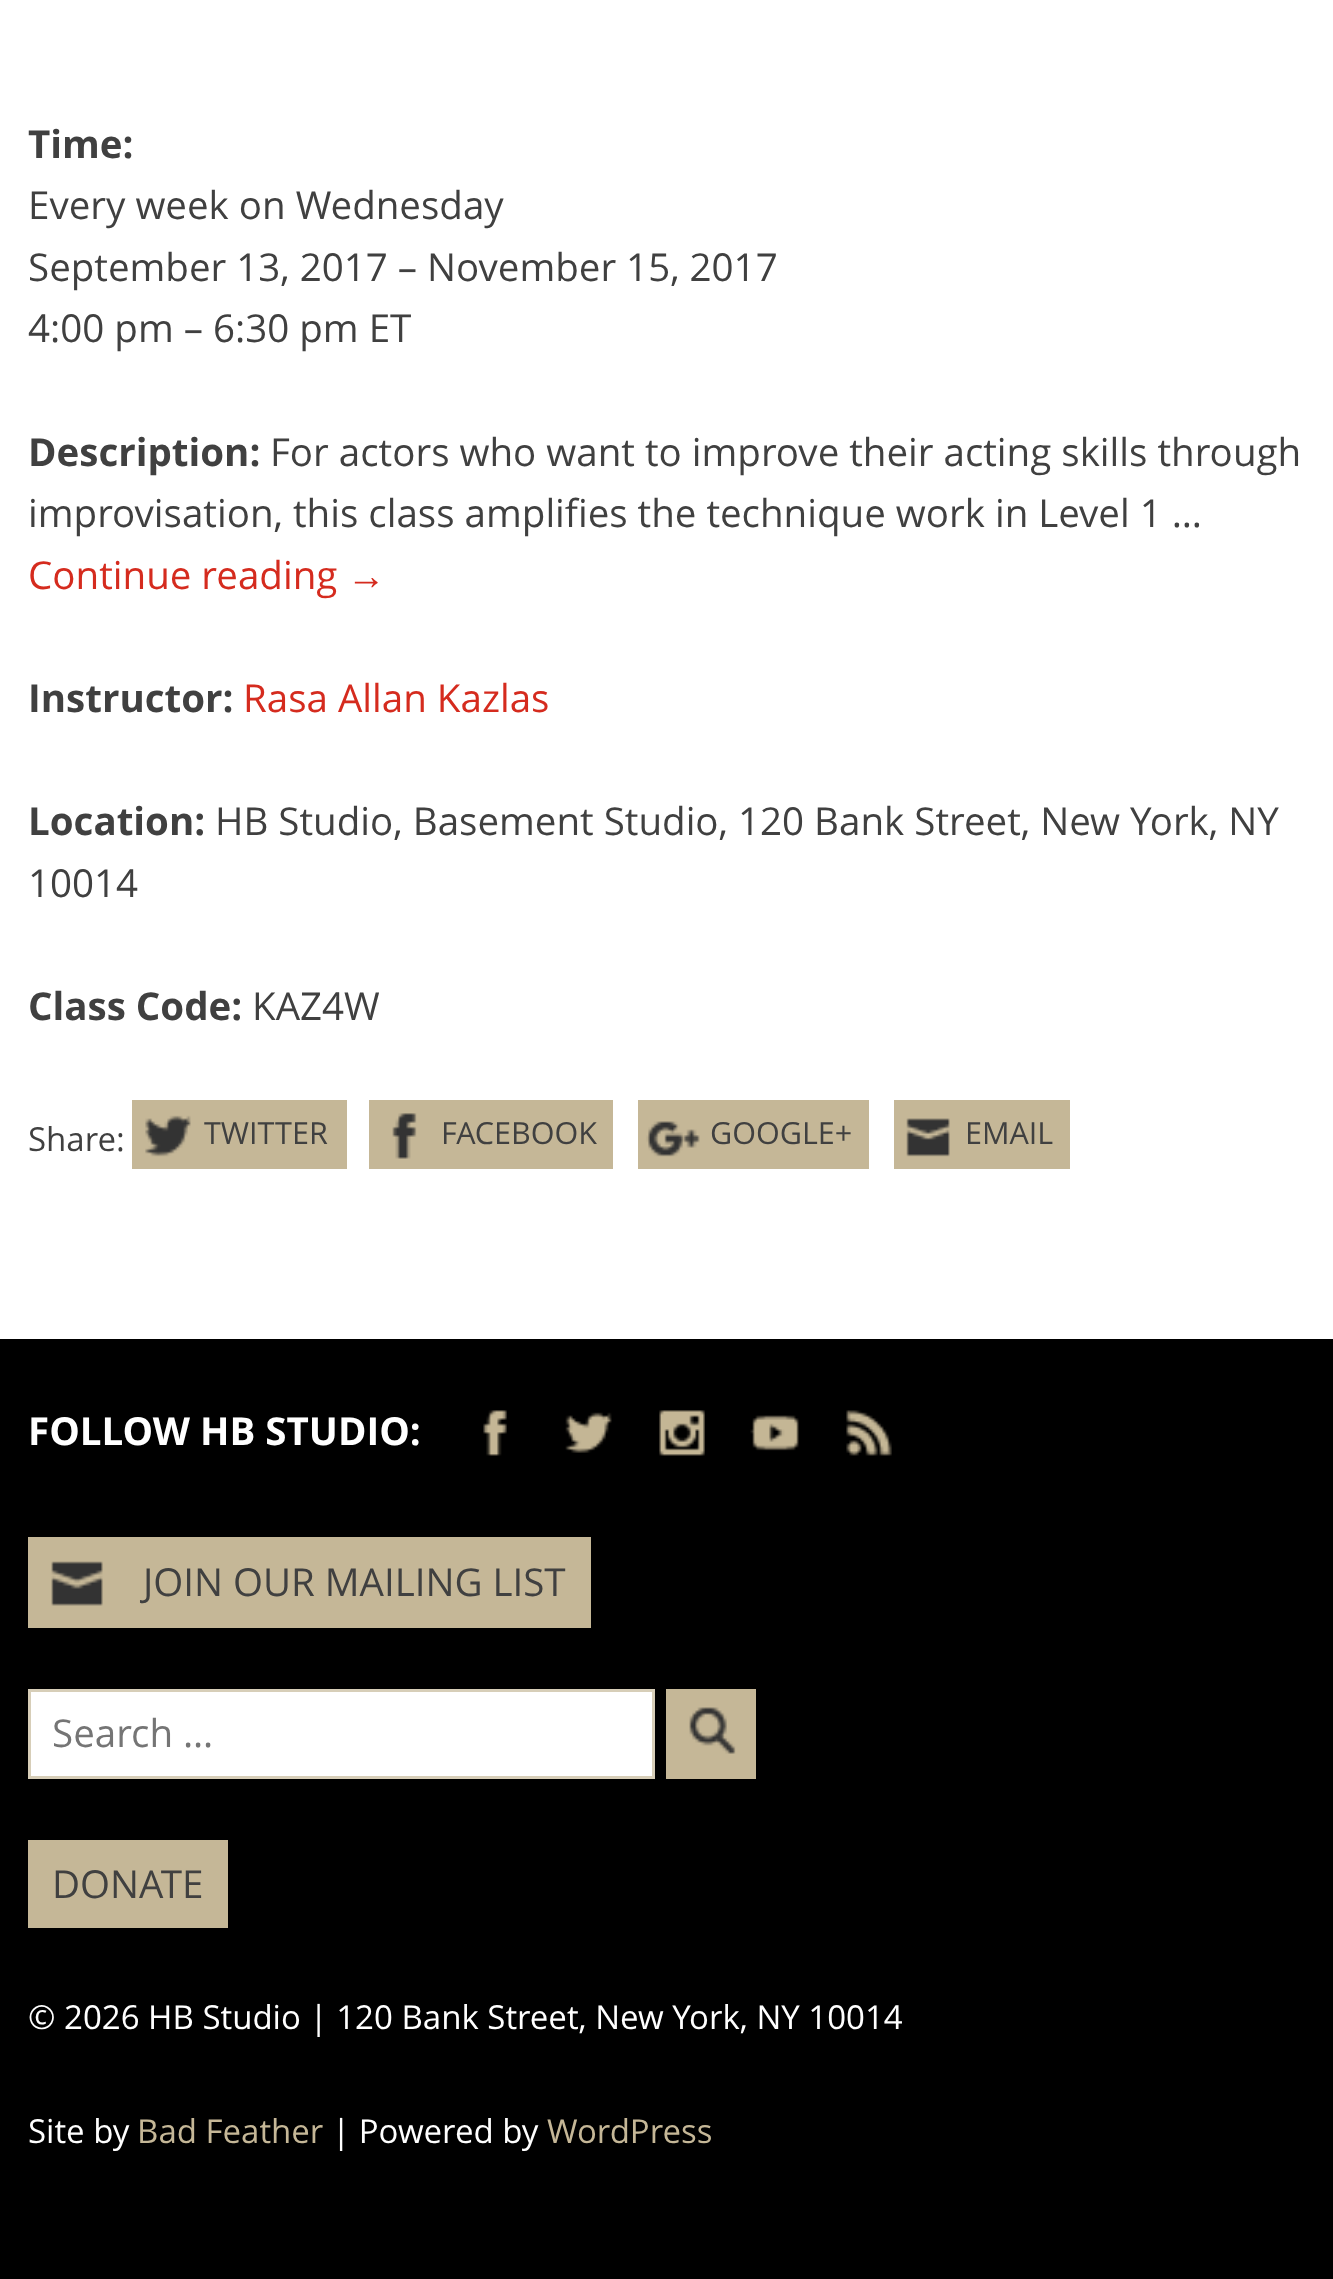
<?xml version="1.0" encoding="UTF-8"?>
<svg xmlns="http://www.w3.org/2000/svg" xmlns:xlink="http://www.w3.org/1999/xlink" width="1333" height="2279">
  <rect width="100%" height="100%" fill="#000000" />
  <rect width="1333" height="1339" fill="#ffffff" />
  <rect x="132" y="1100" width="215" height="69" fill="#c5b797" />
  <image x="145" y="1115" width="46" height="42" xlink:href="image1.png" />
  <rect x="369" y="1100" width="244" height="69" fill="#c5b797" />
  <image x="392" y="1113" width="25" height="46" xlink:href="image2.png" />
  <rect x="638" y="1100" width="231" height="69" fill="#c5b797" />
  <image x="646" y="1121" width="54" height="36" xlink:href="image3.png" />
  <rect x="894" y="1100" width="176" height="69" fill="#c5b797" />
  <image x="906" y="1118" width="44" height="39" xlink:href="image4.png" />
  <image x="483" y="1410" width="24" height="46" xlink:href="image5.png" />
  <image x="565" y="1412" width="47" height="41" xlink:href="image6.png" />
  <image x="659" y="1410" width="46" height="46" xlink:href="image7.png" />
  <image x="750" y="1415" width="49" height="36" xlink:href="image8.png" />
  <image x="846" y="1410" width="46" height="46" xlink:href="image9.png" />
  <rect x="28" y="1537" width="563" height="91" fill="#c5b797" />
  <image x="51" y="1561" width="52" height="45" xlink:href="image10.png" />
  <rect x="29.5" y="1690.5" width="624" height="87" fill="#ffffff" stroke="#d7ceb8" stroke-width="3" />
  <rect x="666" y="1689" width="90" height="90" fill="#c5b797" />
  <image x="689" y="1707" width="47" height="47" xlink:href="image11.png" />
  <rect x="28" y="1840" width="200" height="88" fill="#c5b797" />
  <text x="28" y="158" style="font-family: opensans; font-size: 38.5px; font-weight: bold; fill: #404040">Time:</text>
  <text x="28" y="219" style="font-family: opensans; font-size: 38.5px; fill: #404040">Every week on Wednesday</text>
  <text x="28" y="281" style="font-family: opensans; font-size: 38.5px; fill: #404040">September 13, 2017 – November 15, 2017</text>
  <text x="28" y="342" style="font-family: opensans; font-size: 38.5px; fill: #404040">4:00 pm – 6:30 pm ET</text>
  <text x="28" y="466" style="font-family: opensans; font-size: 38.5px; font-weight: bold; fill: #404040">Description:</text>
  <text x="270" y="466" style="font-family: opensans; font-size: 38.5px; fill: #404040">For actors who want to improve their acting skills through</text>
  <text x="28" y="527" style="font-family: opensans; font-size: 38.5px; fill: #404040">improvisation, this class amplifies the technique work in Level 1 …</text>
  <text x="28" y="589" style="font-family: opensans; font-size: 38.5px; fill: #d52b1e">Continue reading</text>
  <text x="347" y="589" style="font-family: Liberation Sans; font-size: 38.5px; fill: #d52b1e">→</text>
  <text x="28" y="712" style="font-family: opensans; font-size: 38.5px; font-weight: bold; fill: #404040">Instructor:</text>
  <text x="243" y="712" style="font-family: opensans; font-size: 38.5px; fill: #d52b1e">Rasa Allan Kazlas</text>
  <text x="28" y="835" style="font-family: opensans; font-size: 38.5px; font-weight: bold; fill: #404040">Location:</text>
  <text x="215" y="835" style="font-family: opensans; font-size: 38.5px; fill: #404040">HB Studio, Basement Studio, 120 Bank Street, New York, NY</text>
  <text x="28" y="897" style="font-family: opensans; font-size: 38.5px; fill: #404040">10014</text>
  <text x="28" y="1020" style="font-family: opensans; font-size: 38.5px; font-weight: bold; fill: #404040">Class Code:</text>
  <text x="252" y="1020" style="font-family: opensans; font-size: 38.5px; fill: #404040">KAZ4W</text>
  <text x="28" y="1151" style="font-family: opensans; font-size: 33px; fill: #404040">Share:</text>
  <text x="204" y="1144" style="font-family: opensans; font-size: 30.5px; fill: #404040">TWITTER</text>
  <text x="441" y="1144" style="font-family: opensans; font-size: 30.5px; fill: #404040">FACEBOOK</text>
  <text x="710" y="1144" style="font-family: opensans; font-size: 30.5px; fill: #404040">GOOGLE+</text>
  <text x="965" y="1144" style="font-family: opensans; font-size: 30.5px; fill: #404040">EMAIL</text>
  <text x="28" y="1445" style="font-family: opensans; font-size: 38.5px; font-weight: bold; fill: #ffffff">FOLLOW HB STUDIO:</text>
  <text x="143" y="1596" style="font-family: opensans; font-size: 38.5px; fill: #404040">JOIN OUR MAILING LIST</text>
  <text x="52" y="1747" style="font-family: opensans; font-size: 38.5px; fill: #757575">Search …</text>
  <text x="52" y="1898" style="font-family: opensans; font-size: 38.5px; fill: #404040">DONATE</text>
  <text x="28" y="2029" style="font-family: opensans; font-size: 33px; fill: #ffffff">© 2026 HB Studio | 120 Bank Street, New York, NY 10014</text>
  <text x="28" y="2143" style="font-family: opensans; font-size: 33px; fill: #ffffff">Site by</text>
  <text x="137" y="2143" style="font-family: opensans; font-size: 33px; fill: #c5b797">Bad Feather</text>
  <text x="332" y="2143" style="font-family: opensans; font-size: 33px; fill: #ffffff">| Powered by</text>
  <text x="547" y="2143" style="font-family: opensans; font-size: 33px; fill: #c5b797">WordPress</text>
</svg>
